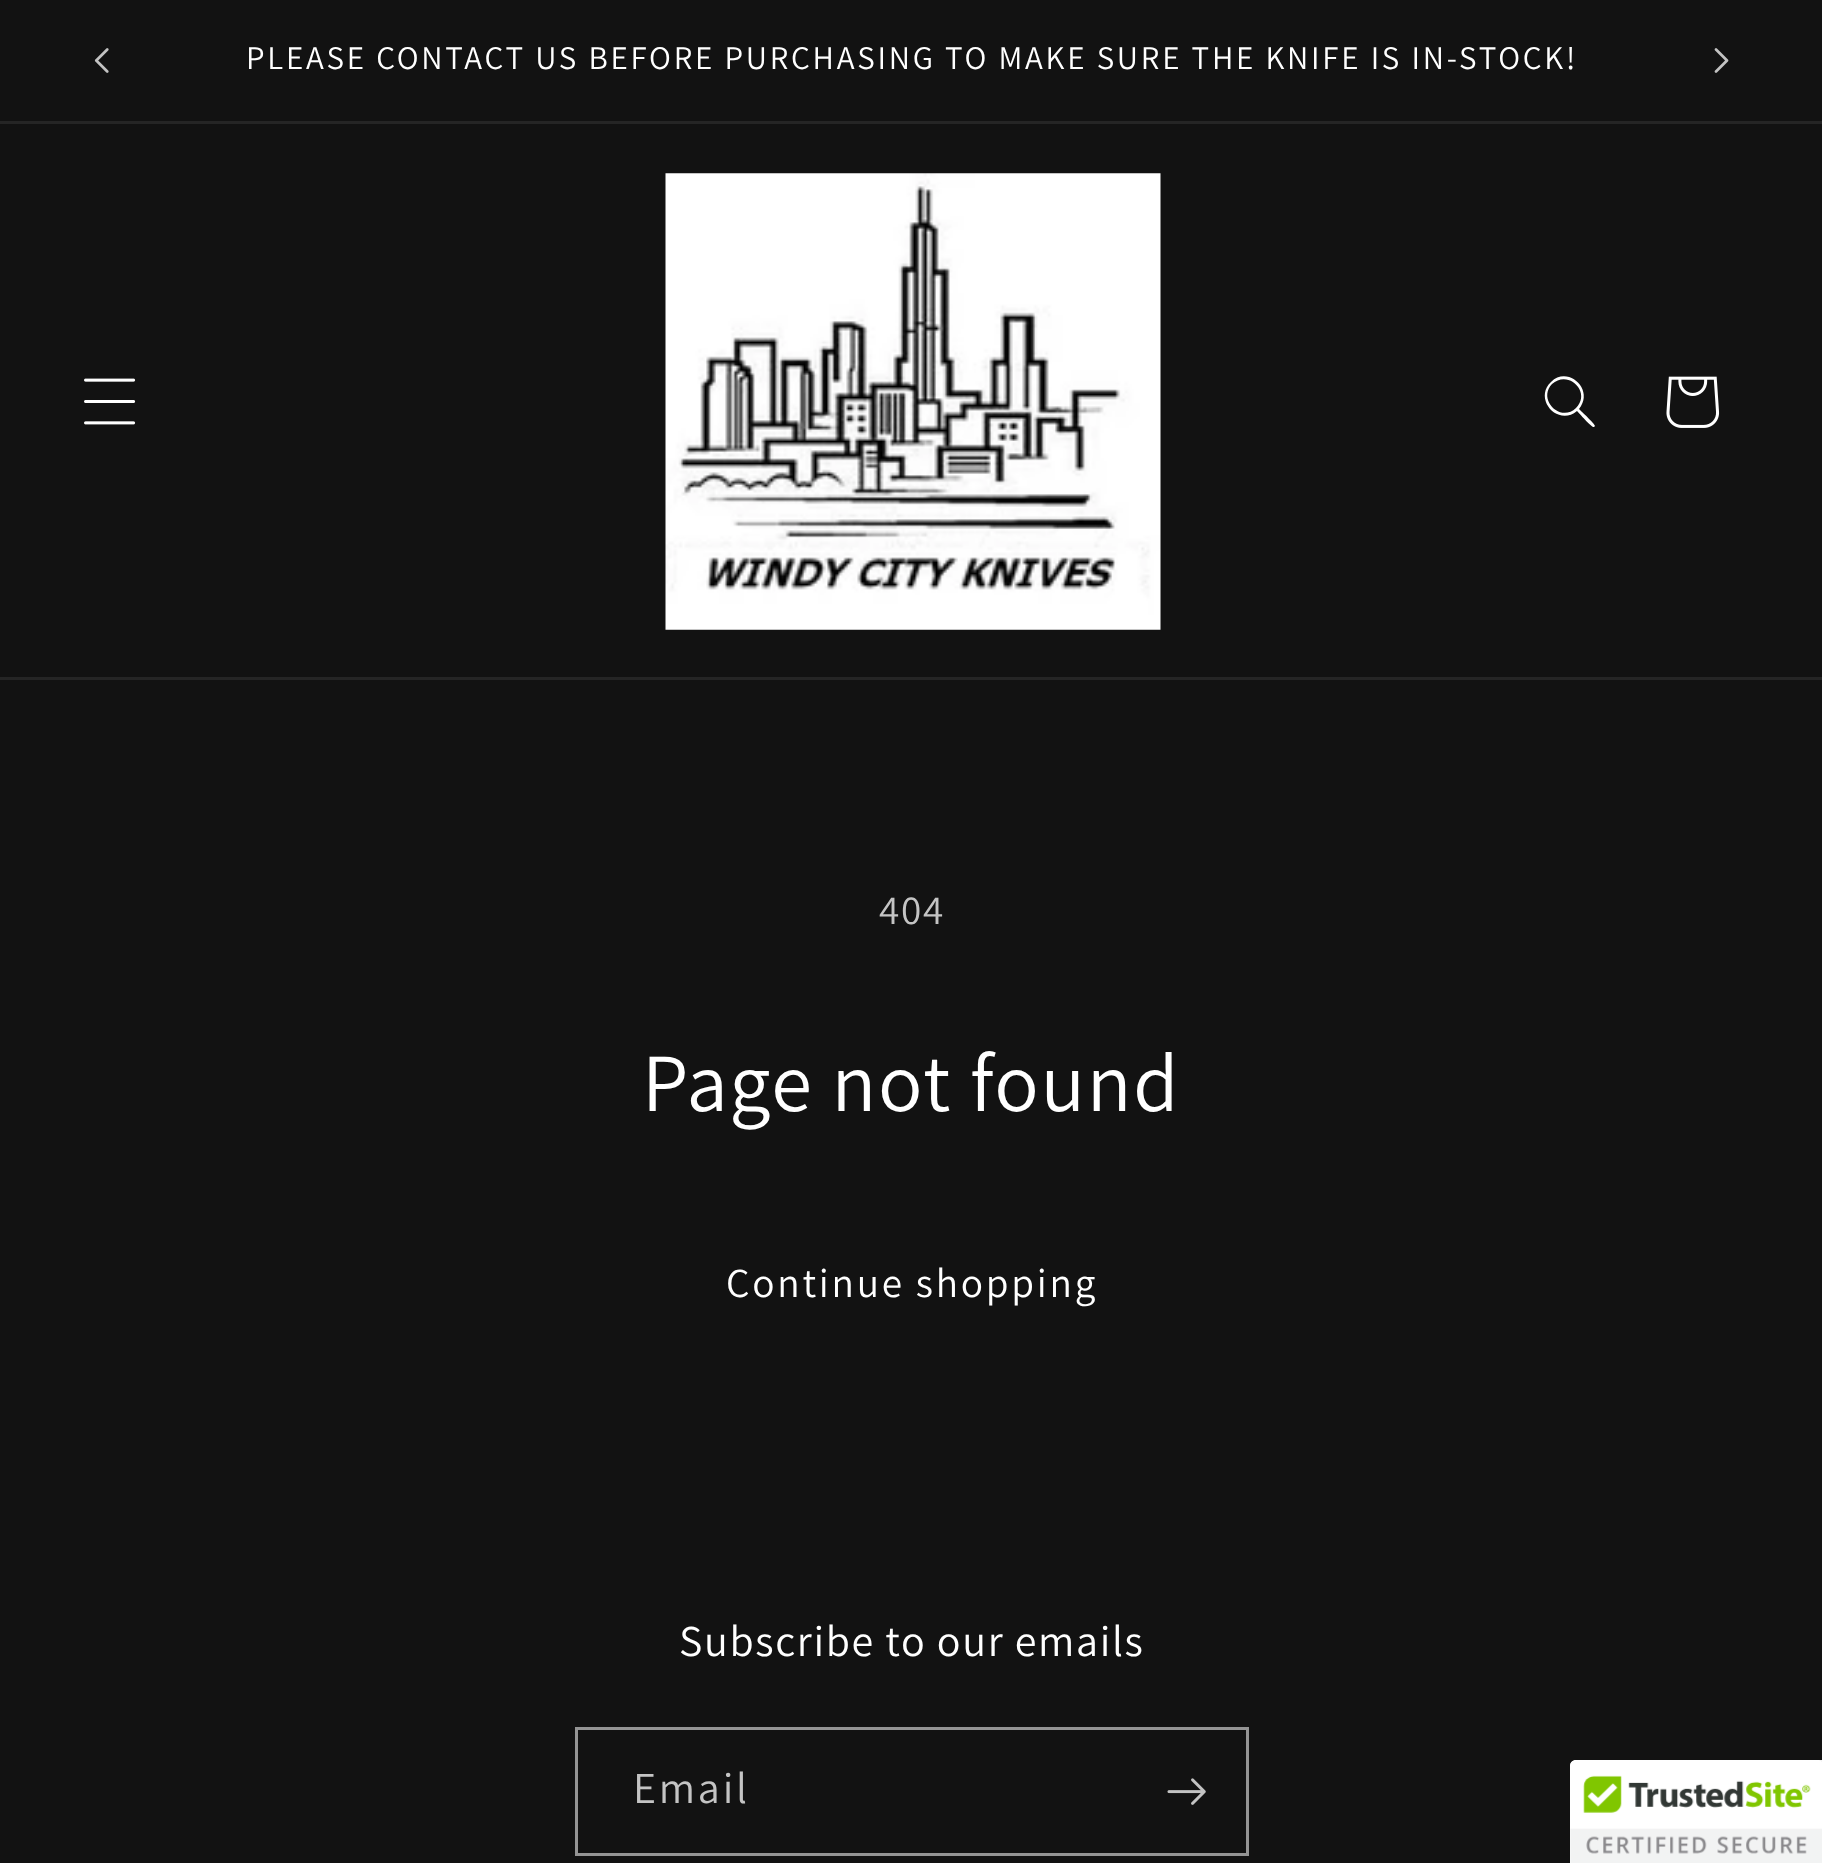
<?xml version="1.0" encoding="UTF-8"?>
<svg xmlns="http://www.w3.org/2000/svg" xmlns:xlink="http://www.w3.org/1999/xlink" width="1822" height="1863">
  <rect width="100%" height="100%" fill="#121212" />
  <rect y="121" width="1822" height="3" fill="#252525" />
  <image x="94" y="48" width="15" height="25" xlink:href="image1.png" />
  <image x="1714" y="48" width="15" height="25" xlink:href="image2.png" />
  <rect y="677" width="1822" height="3" fill="#252525" />
  <image x="84" y="378" width="52" height="47" xlink:href="image3.png" />
  <image x="665" y="173" width="496" height="457" xlink:href="image4.png" />
  <path d="M 1576 408 c -15 15 -39 -8 -24 -24 c 16 -15 40 8 24 24 z m 1 3 c -19 16 -44 -12 -26 -29 c 17 -17 44 8 28 27 c 2 2 16 15 16 17 l -1 1 c -2 1 -15 -14 -17 -16 z" fill="#ffffff" fill-rule="evenodd" />
  <image x="1666" y="376" width="54" height="52" xlink:href="image5.png" />
  <rect x="576.5" y="1728.5" width="671" height="126" fill="none" stroke="#949494" stroke-width="3" />
  <image x="1167" y="1778" width="39" height="27" xlink:href="image6.png" />
  <path d="M 1576 1760 h 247 v 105 h -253 v -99 c 0 -3.5 2.5 -6 6 -6 z" fill="#ffffff" />
  <image x="1570" y="1760" width="252" height="103" xlink:href="image7.png" />
  <text x="246" y="69" style="font-family: Assistant; font-size: 33px; letter-spacing: 2.75px; fill: #ffffff">PLEASE CONTACT US BEFORE PURCHASING TO MAKE SURE THE KNIFE IS IN-STOCK!</text>
  <text x="879" y="924" style="font-family: Assistant; font-size: 41.25px; letter-spacing: 1.65px; fill: #c4c4c4">404</text>
  <text x="642" y="1111" style="font-family: Assistant; font-size: 82.5px; letter-spacing: 1.65px; fill: #ffffff">Page not found</text>
  <text x="726" y="1297" style="font-family: Assistant; font-size: 41.25px; letter-spacing: 2.75px; fill: #ffffff">Continue shopping</text>
  <text x="679" y="1656" style="font-family: Assistant; font-size: 44px; letter-spacing: 1.65px; fill: #ffffff">Subscribe to our emails</text>
  <text x="633" y="1803" style="font-family: Assistant; font-size: 44px; letter-spacing: 2.75px; fill: #c4c4c4">Email</text>
</svg>
